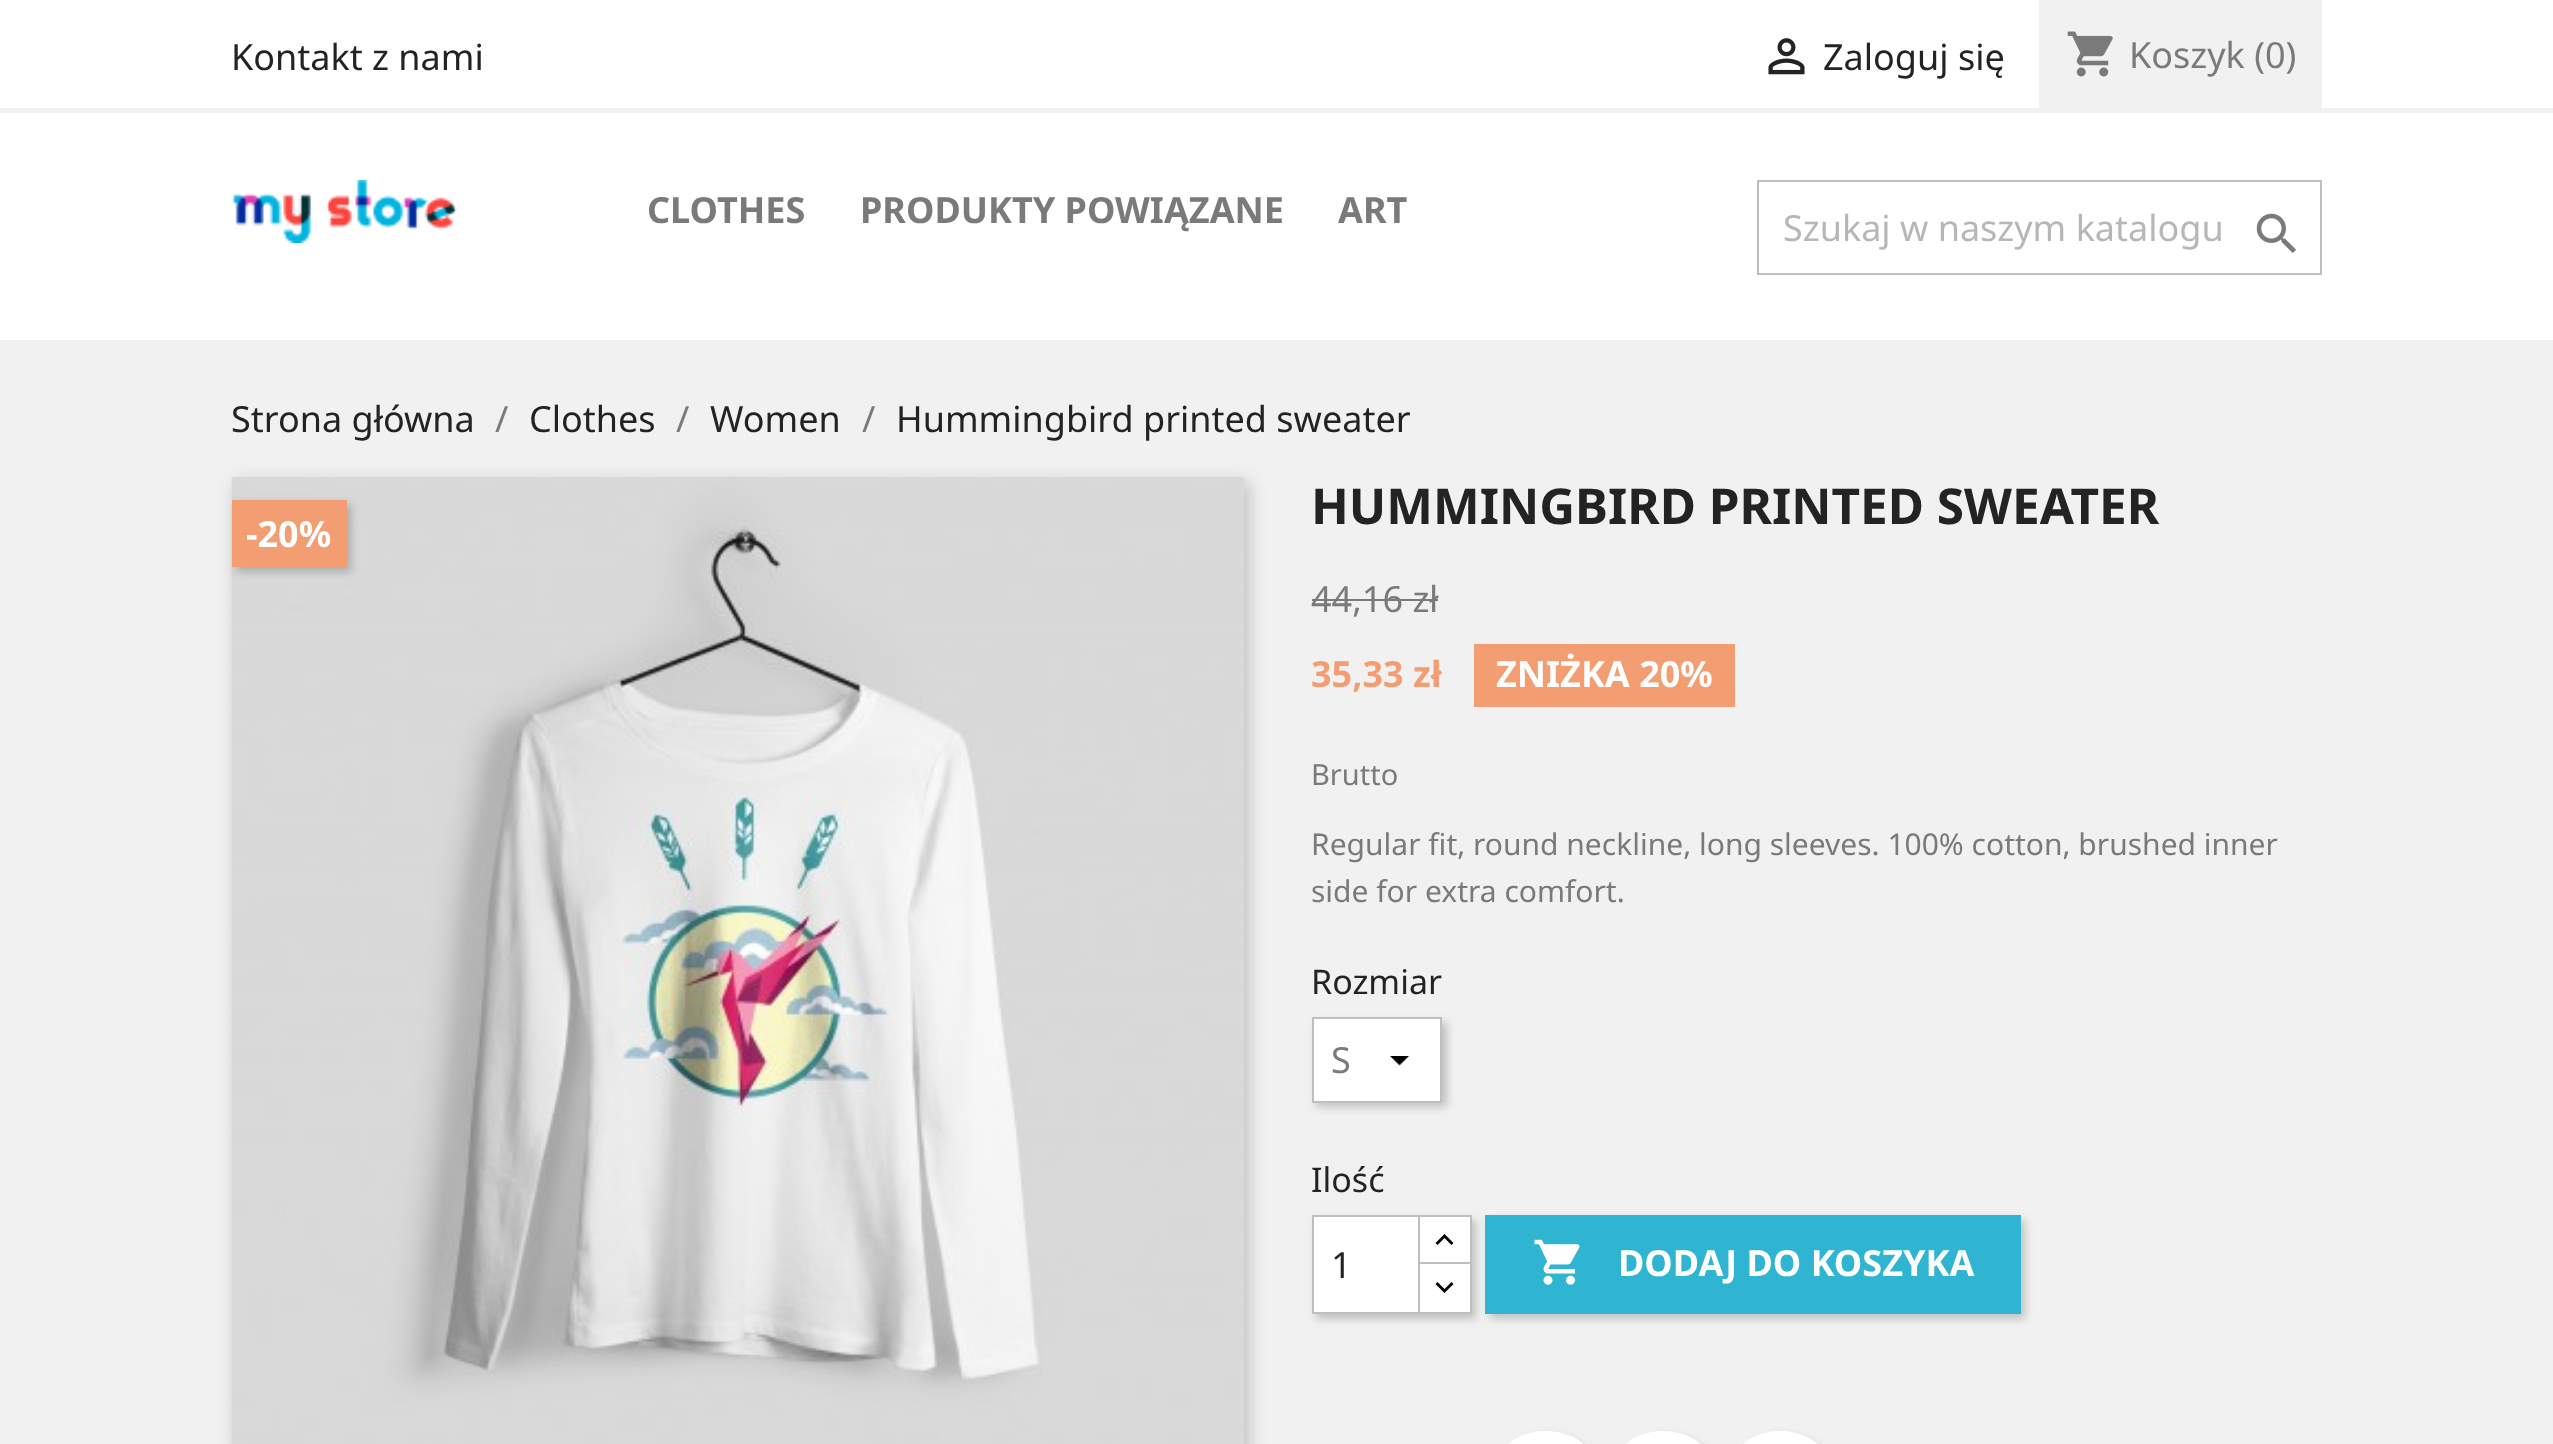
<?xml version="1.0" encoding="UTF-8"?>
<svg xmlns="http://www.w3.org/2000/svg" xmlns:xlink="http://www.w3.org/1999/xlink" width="2553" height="1444">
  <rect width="100%" height="100%" fill="#ffffff" />
  <rect y="108" width="2553" height="5" fill="#f1f1f1" />
  <image x="1768" y="38" width="37" height="37" xlink:href="image1.png" />
  <rect x="2039" width="283" height="108" fill="#f1f1f1" />
  <image x="2067" y="31" width="46" height="46" xlink:href="image2.png" />
  <image x="231" y="180" width="226" height="63" xlink:href="image3.png" />
  <rect x="1758" y="181" width="563" height="93" fill="none" stroke="#bfbfbf" stroke-width="2" />
  <image x="2256" y="213" width="40" height="40" xlink:href="image4.png" />
  <rect y="340" width="2553" height="1104" fill="#f1f1f1" />
  <rect x="236" y="482" width="1013" height="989" fill="#000000" fill-opacity="0.2" filter="blur(9px)" />
  <image x="231" y="477" width="1013" height="967" xlink:href="image5.png" />
  <rect x="236" y="504" width="115" height="68" fill="#000000" fill-opacity="0.2" filter="blur(4.5px)" />
  <rect x="232" y="500" width="115" height="67" fill="#f39d72" />
  <rect x="1312" y="599" width="126" height="2" fill="#7a7a7a" />
  <rect x="1474" y="644" width="261" height="63" fill="#f39d72" />
  <rect x="1316" y="1022" width="131" height="85" fill="#000000" fill-opacity="0.2" filter="blur(4.5px)" />
  <rect x="1314" y="1019" width="126" height="82" fill="#ffffff" />
  <image x="1390" y="1056" width="19" height="10" xlink:href="image6.png" />
  <rect x="1313" y="1018" width="128" height="84" fill="none" stroke="#bfbfbf" stroke-width="2" />
  <rect x="1490" y="1220" width="535" height="99" fill="#000000" fill-opacity="0.2" filter="blur(4.5px)" />
  <rect x="1485" y="1215" width="536" height="99" fill="#2fb5d2" />
  <rect x="1316" y="1220" width="160" height="99" fill="#000000" fill-opacity="0.2" filter="blur(4.5px)" />
  <rect x="1420" y="1217" width="50" height="45" fill="#ffffff" />
  <rect x="1419" y="1216" width="52" height="50" fill="none" stroke="#bfbfbf" stroke-width="2" />
  <rect x="1419" y="1263" width="52" height="50" fill="#ffffff" stroke="#bfbfbf" stroke-width="2" />
  <rect x="1313" y="1216" width="106" height="97" fill="#ffffff" stroke="#bfbfbf" stroke-width="2" />
  <path d="M 1444.5 1234 l 9 9 l -2 2 l -7 -7 l -7 7 l -2 -2 z" fill="#000000" />
  <path d="M 1451.5 1282 l 2 2 l -9 9 l -9 -9 l 2 -2 l 7 7 z" fill="#000000" />
  <image x="1534" y="1239" width="46" height="46" xlink:href="image7.png" />
  <rect x="1505" y="1436" width="90" height="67" rx="45" fill="#000000" fill-opacity="0.2" filter="blur(4.5px)" />
  <rect x="1501" y="1431" width="90" height="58" rx="45" fill="#ffffff" />
  <rect x="1622" y="1436" width="90" height="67" rx="45" fill="#000000" fill-opacity="0.2" filter="blur(4.5px)" />
  <rect x="1618" y="1431" width="90" height="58" rx="45" fill="#ffffff" />
  <rect x="1739" y="1436" width="90" height="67" rx="45" fill="#000000" fill-opacity="0.2" filter="blur(4.5px)" />
  <rect x="1735" y="1431" width="90" height="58" rx="45" fill="#ffffff" />
  <text x="231" y="70" style="font-family: Noto Sans; font-size: 36px; fill: #232323">Kontakt z nami</text>
  <text x="1823" y="70" style="font-family: Noto Sans; font-size: 36px; fill: #232323">Zaloguj się</text>
  <text x="2129" y="68" style="font-family: Noto Sans; font-size: 36px; fill: #7a7a7a">Koszyk (0)</text>
  <text x="647" y="223" style="font-family: Noto Sans; font-size: 36px; font-weight: bold; fill: #7a7a7a">CLOTHES</text>
  <text x="860" y="223" style="font-family: Noto Sans; font-size: 36px; font-weight: bold; fill: #7a7a7a">PRODUKTY POWIĄZANE</text>
  <text x="1338" y="223" style="font-family: Noto Sans; font-size: 36px; font-weight: bold; fill: #7a7a7a">ART</text>
  <text x="1783" y="241" style="font-family: Noto Sans; font-size: 36px; fill: #b7b7b7">Szukaj w naszym katalogu</text>
  <text x="231" y="432" style="font-family: Noto Sans; font-size: 36px; fill: #232323">Strona główna</text>
  <text x="495" y="432" style="font-family: Noto Sans; font-size: 36px; fill: #7a7a7a">/</text>
  <text x="529" y="432" style="font-family: Noto Sans; font-size: 36px; fill: #232323">Clothes</text>
  <text x="676" y="432" style="font-family: Noto Sans; font-size: 36px; fill: #7a7a7a">/</text>
  <text x="710" y="432" style="font-family: Noto Sans; font-size: 36px; fill: #232323">Women</text>
  <text x="862" y="432" style="font-family: Noto Sans; font-size: 36px; fill: #7a7a7a">/</text>
  <text x="896" y="432" style="font-family: Noto Sans; font-size: 36px; fill: #232323">Hummingbird printed sweater</text>
  <text x="246" y="547" style="font-family: Noto Sans; font-size: 36px; font-weight: bold; fill: #ffffff">-20%</text>
  <text x="1311" y="524" style="font-family: Noto Sans; font-size: 49.5px; font-weight: bold; fill: #232323">HUMMINGBIRD PRINTED SWEATER</text>
  <text x="1311" y="612" style="font-family: Noto Sans; font-size: 36px; fill: #7a7a7a">44,16 zł</text>
  <text x="1311" y="687" style="font-family: Noto Sans; font-size: 36px; font-weight: bold; fill: #f39d72">35,33 zł</text>
  <text x="1496" y="687" style="font-family: Noto Sans; font-size: 36px; font-weight: bold; fill: #ffffff">ZNIŻKA 20%</text>
  <text x="1311" y="785" style="font-family: Noto Sans; font-size: 29px; fill: #7a7a7a">Brutto</text>
  <text x="1311" y="855" style="font-family: Noto Sans; font-size: 30px; fill: #7a7a7a">Regular fit, round neckline, long sleeves. 100% cotton, brushed inner</text>
  <text x="1311" y="902" style="font-family: Noto Sans; font-size: 30px; fill: #7a7a7a">side for extra comfort.</text>
  <text x="1311" y="994" style="font-family: Noto Sans; font-size: 34px; fill: #232323">Rozmiar</text>
  <text x="1331" y="1073" style="font-family: Noto Sans; font-size: 36px; fill: #7a7a7a">S</text>
  <text x="1311" y="1192" style="font-family: Noto Sans; font-size: 34px; fill: #232323">Ilość</text>
  <text x="1331" y="1278" style="font-family: Noto Sans; font-size: 36px; fill: #232323">1</text>
  <text x="1618" y="1276" style="font-family: Noto Sans; font-size: 36px; font-weight: bold; fill: #ffffff">DODAJ DO KOSZYKA</text>
</svg>
